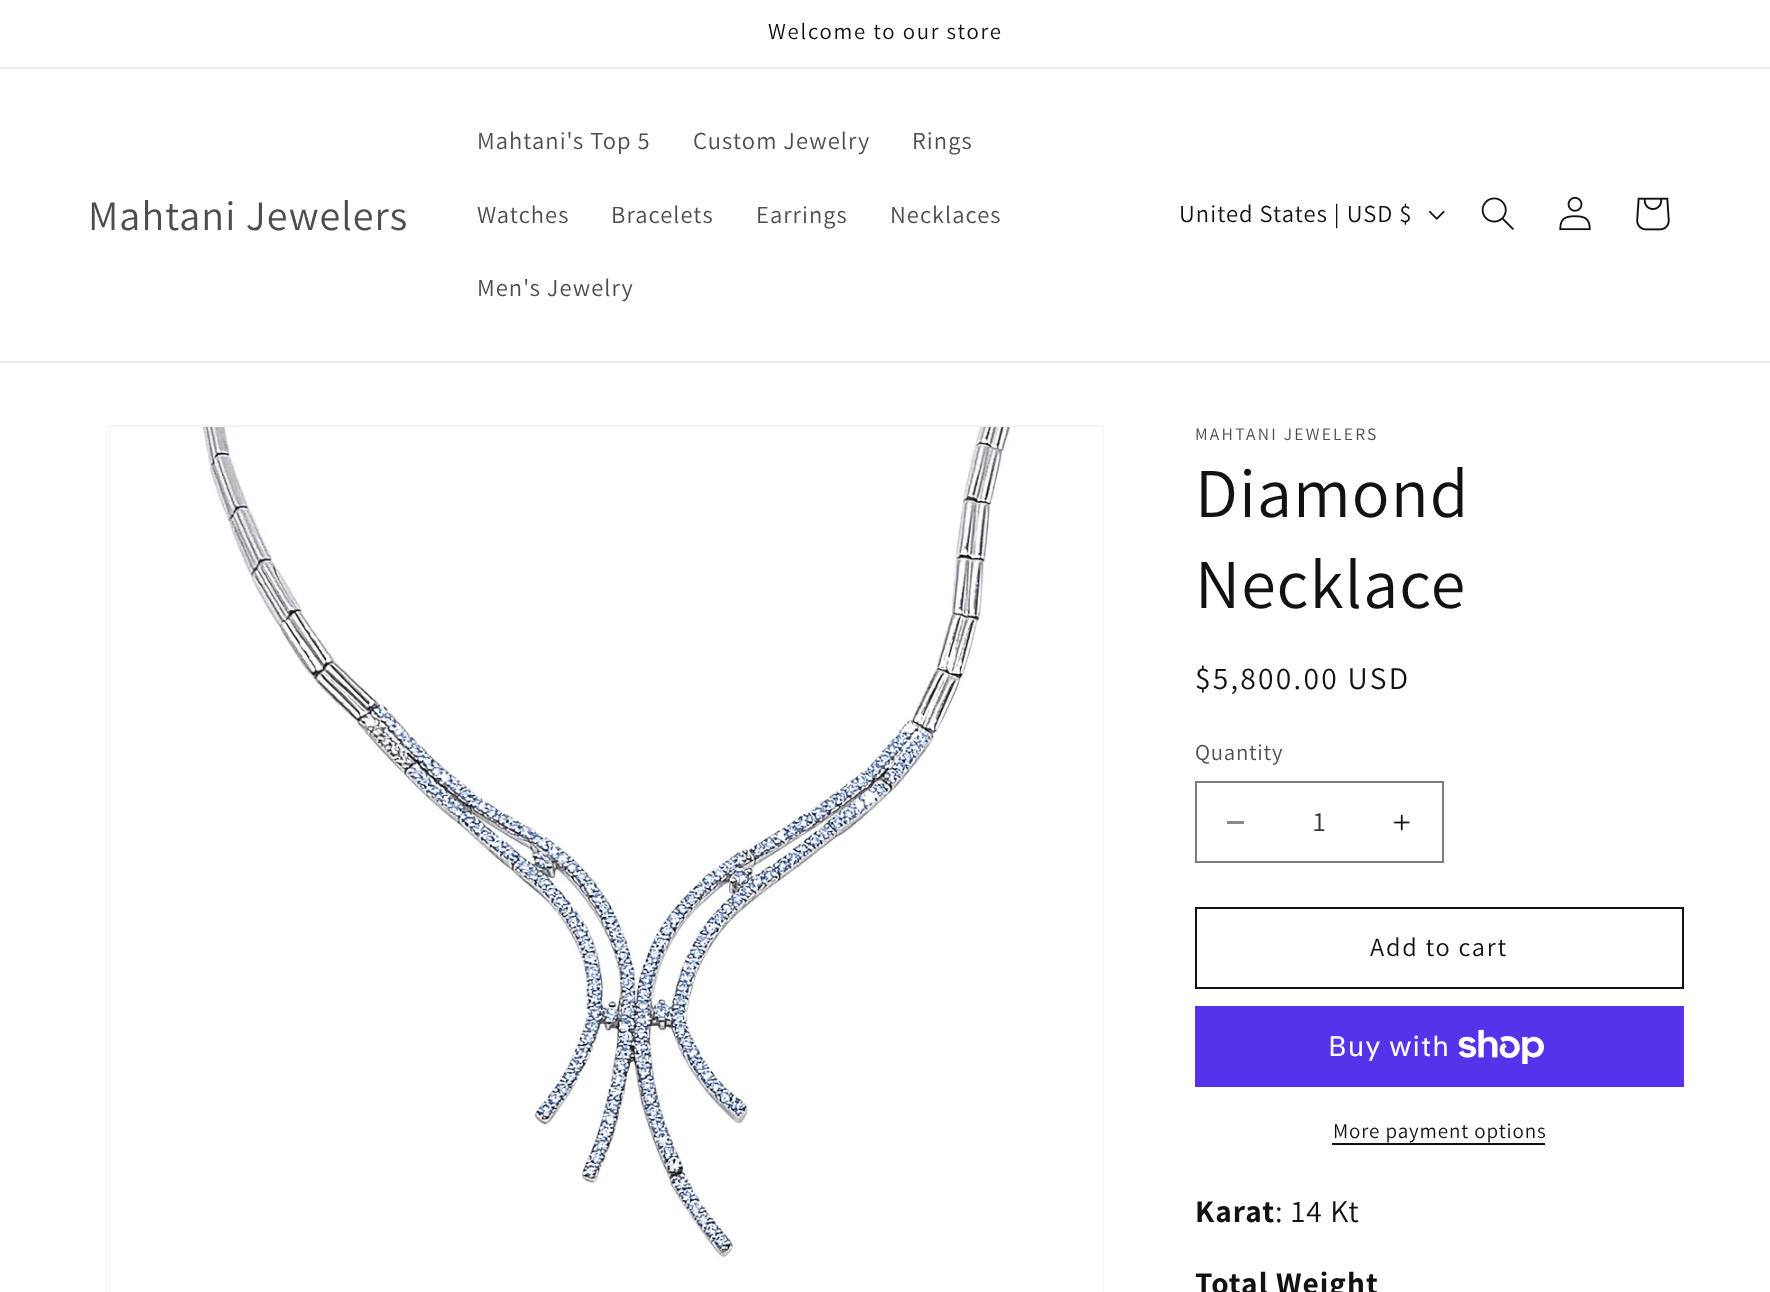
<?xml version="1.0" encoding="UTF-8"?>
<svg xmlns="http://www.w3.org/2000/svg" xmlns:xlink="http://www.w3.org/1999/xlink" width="1770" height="1292">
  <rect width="100%" height="100%" fill="#ffffff" />
  <rect y="67" width="1770" height="2" fill="#ececec" />
  <rect y="361" width="1770" height="2" fill="#ececec" />
  <image x="1428" y="210" width="17" height="10" xlink:href="image1.png" />
  <image x="1481" y="197" width="33" height="33" xlink:href="image2.png" />
  <image x="1559" y="196" width="32" height="35" xlink:href="image3.png" />
  <image x="1636" y="197" width="34" height="34" xlink:href="image4.png" />
  <rect x="110" y="426" width="993" height="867" fill="none" stroke="#f3f3f3" stroke-width="2" />
  <image x="110" y="427" width="993" height="865" xlink:href="image5.png" />
  <rect x="1227" y="821" width="17" height="3" fill="#898989" />
  <image x="1393" y="814" width="17" height="17" xlink:href="image6.png" />
  <rect x="1196" y="782" width="247" height="80" fill="none" stroke="#7d7d7d" stroke-width="2" />
  <rect x="1196" y="908" width="487" height="80" fill="none" stroke="#121212" stroke-width="2" />
  <rect x="1195" y="1006" width="489" height="81" fill="#5433eb" />
  <image x="1458" y="1029" width="86" height="35" xlink:href="image7.png" />
  <rect x="1332" y="1143" width="213" height="2" fill="#121212" />
  <text x="768" y="39" style="font-family: Assistant; font-size: 22.75px; letter-spacing: 1.75px; fill: #121212">Welcome to our store</text>
  <text x="88" y="230" style="font-family: Assistant; font-size: 42px; letter-spacing: 1.05px; fill: #4d4d4d">Mahtani Jewelers</text>
  <text x="477" y="149" style="font-family: Assistant; font-size: 24.5px; letter-spacing: 1.05px; fill: #4d4d4d">Mahtani's Top 5</text>
  <text x="693" y="149" style="font-family: Assistant; font-size: 24.5px; letter-spacing: 1.05px; fill: #4d4d4d">Custom Jewelry</text>
  <text x="912" y="149" style="font-family: Assistant; font-size: 24.5px; letter-spacing: 1.05px; fill: #4d4d4d">Rings</text>
  <text x="477" y="223" style="font-family: Assistant; font-size: 24.5px; letter-spacing: 1.05px; fill: #4d4d4d">Watches</text>
  <text x="611" y="223" style="font-family: Assistant; font-size: 24.5px; letter-spacing: 1.05px; fill: #4d4d4d">Bracelets</text>
  <text x="756" y="223" style="font-family: Assistant; font-size: 24.5px; letter-spacing: 1.05px; fill: #4d4d4d">Earrings</text>
  <text x="890" y="223" style="font-family: Assistant; font-size: 24.5px; letter-spacing: 1.05px; fill: #4d4d4d">Necklaces</text>
  <text x="477" y="296" style="font-family: Assistant; font-size: 24.5px; letter-spacing: 1.05px; fill: #4d4d4d">Men's Jewelry</text>
  <text x="1179" y="222" style="font-family: Assistant; font-size: 24.5px; letter-spacing: 1.05px; fill: #121212">United States | USD $</text>
  <text x="1195" y="440" style="font-family: Assistant; font-size: 17.5px; letter-spacing: 2.25px; fill: #4d4d4d">MAHTANI JEWELERS</text>
  <text x="1195" y="517" style="font-family: Assistant; font-size: 70px; letter-spacing: 1.05px; fill: #121212">Diamond</text>
  <text x="1195" y="608" style="font-family: Assistant; font-size: 70px; letter-spacing: 1.05px; fill: #121212">Necklace</text>
  <text x="1195" y="689" style="font-family: Assistant; font-size: 31.5px; letter-spacing: 2.25px; fill: #121212">$5,800.00 USD</text>
  <text x="1195" y="760" style="font-family: Assistant; font-size: 22.75px; letter-spacing: 0.75px; fill: #4d4d4d">Quantity</text>
  <text x="1313" y="831" style="font-family: Assistant; font-size: 28px; fill: #363636">1</text>
  <text x="1370" y="956" style="font-family: Assistant; font-size: 26.25px; letter-spacing: 1.75px; fill: #121212">Add to cart</text>
  <text x="1328" y="1056" style="font-family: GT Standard; font-size: 28px; letter-spacing: 1.05px; fill: #ffffff">Buy with</text>
  <text x="1333" y="1138" style="font-family: Assistant; font-size: 21px; letter-spacing: 0.9px; fill: #121212">More payment options</text>
  <text x="1195" y="1222" style="font-family: Assistant; font-size: 31.5px; font-weight: bold; letter-spacing: 1.05px; fill: #121212">Karat</text>
  <text x="1275" y="1222" style="font-family: Assistant; font-size: 31.5px; letter-spacing: 1.05px; fill: #121212">: 14 Kt</text>
  <text x="1195" y="1294" style="font-family: Assistant; font-size: 31.5px; font-weight: bold; letter-spacing: 1.05px; fill: #121212">Total Weight</text>
</svg>
